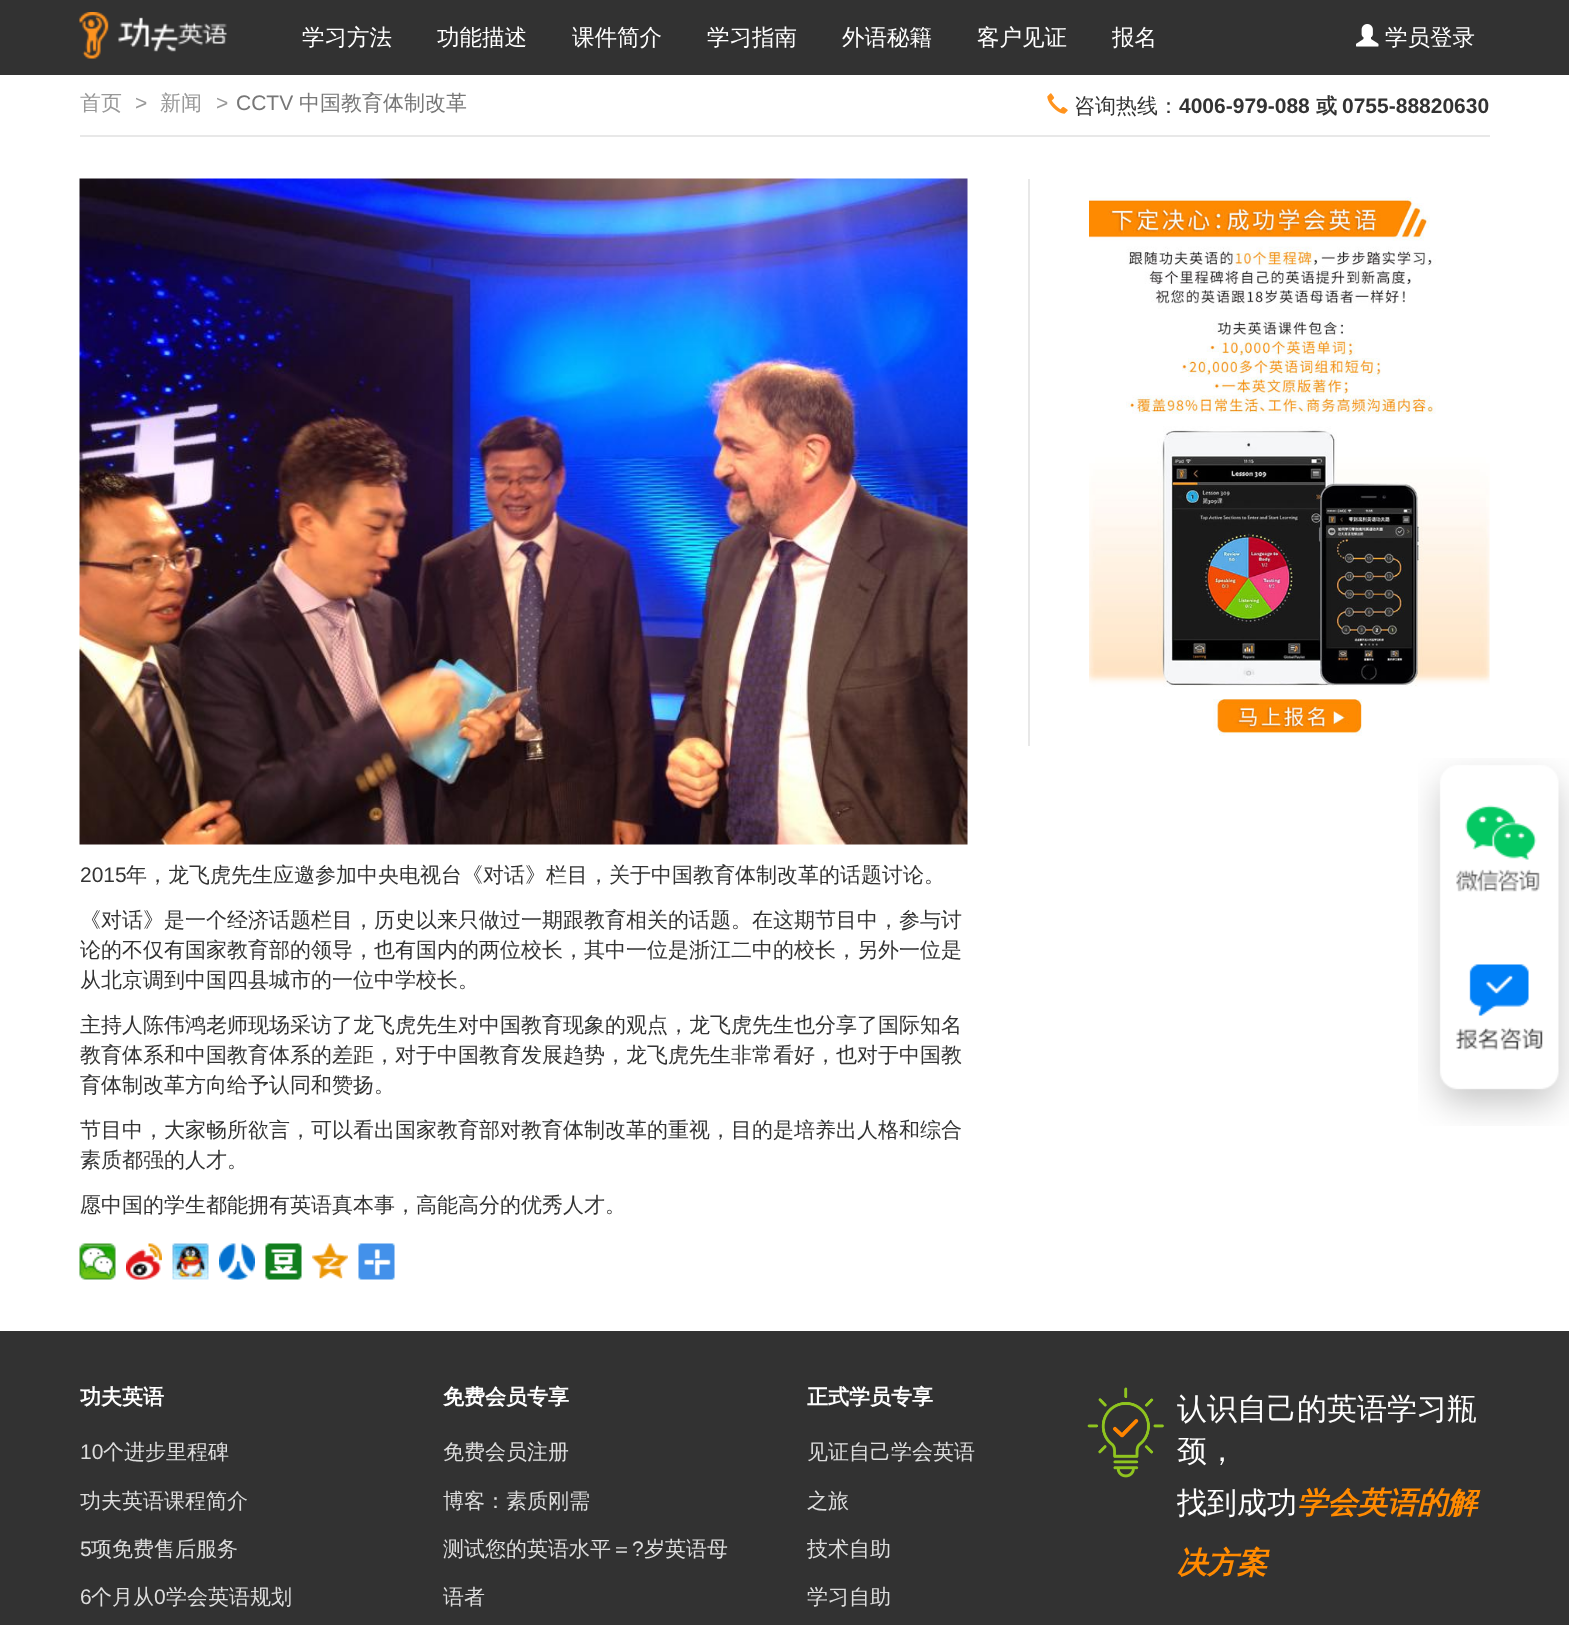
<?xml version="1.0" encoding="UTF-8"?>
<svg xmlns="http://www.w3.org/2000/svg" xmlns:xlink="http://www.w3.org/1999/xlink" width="1569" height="1625">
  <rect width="100%" height="100%" fill="#ffffff" />
  <rect width="1569" height="75" fill="#323232" />
  <image x="79" y="12" width="148" height="47" xlink:href="image1.png" />
  <image x="1356" y="24" width="23" height="23" xlink:href="image2.png" />
  <rect x="80" y="135" width="1410" height="2" fill="#e8e8e8" />
  <image x="1047" y="93" width="21" height="21" xlink:href="image3.png" />
  <rect x="1028" y="179" width="2" height="567" fill="#e8e8e8" />
  <image x="1089" y="197" width="401" height="539" xlink:href="image4.png" />
  <image x="79" y="178" width="889" height="667" xlink:href="image5.png" />
  <image x="79" y="1243" width="37" height="37" xlink:href="image6.png" />
  <image x="126" y="1243" width="36" height="37" xlink:href="image7.png" />
  <image x="172" y="1243" width="37" height="37" xlink:href="image8.png" />
  <image x="219" y="1243" width="36" height="37" xlink:href="image9.png" />
  <image x="265" y="1243" width="37" height="37" xlink:href="image10.png" />
  <image x="312" y="1243" width="36" height="36" xlink:href="image11.png" />
  <image x="358" y="1243" width="37" height="37" xlink:href="image12.png" />
  <image x="1418" y="758" width="151" height="368" xlink:href="image13.png" />
  <rect y="1331" width="1569" height="294" fill="#323232" />
  <image x="1087" y="1387" width="77" height="91" xlink:href="image14.png" />
  <text x="302" y="45" style="font-family: WenQuanYi Zen Hei; font-size: 22.5px; font-weight: 500; fill: #ffffff">学习方法</text>
  <text x="437" y="45" style="font-family: WenQuanYi Zen Hei; font-size: 22.5px; font-weight: 500; fill: #ffffff">功能描述</text>
  <text x="572" y="45" style="font-family: WenQuanYi Zen Hei; font-size: 22.5px; font-weight: 500; fill: #ffffff">课件简介</text>
  <text x="707" y="45" style="font-family: WenQuanYi Zen Hei; font-size: 22.5px; font-weight: 500; fill: #ffffff">学习指南</text>
  <text x="842" y="45" style="font-family: WenQuanYi Zen Hei; font-size: 22.5px; font-weight: 500; fill: #ffffff">外语秘籍</text>
  <text x="977" y="45" style="font-family: WenQuanYi Zen Hei; font-size: 22.5px; font-weight: 500; fill: #ffffff">客户见证</text>
  <text x="1112" y="45" style="font-family: WenQuanYi Zen Hei; font-size: 22.5px; font-weight: 500; fill: #ffffff">报名</text>
  <text x="1385" y="45" style="font-family: WenQuanYi Zen Hei; font-size: 22.5px; font-weight: 500; fill: #ffffff">学员登录</text>
  <text x="80" y="110" style="font-family: WenQuanYi Zen Hei; font-size: 21px; font-weight: 500; fill: #999999">首页</text>
  <text x="135" y="110" style="font-family: Liberation Sans; font-size: 21px; fill: #999999">&gt;</text>
  <text x="160" y="110" style="font-family: WenQuanYi Zen Hei; font-size: 21px; font-weight: 500; fill: #999999">新闻</text>
  <text x="216" y="110" style="font-family: Liberation Sans; font-size: 21px; fill: #999999">&gt;</text>
  <text x="236" y="110" style="font-family: Liberation Sans; font-size: 21px; fill: #777777">CCTV</text>
  <text x="299" y="110" style="font-family: WenQuanYi Zen Hei; font-size: 21px; font-weight: 500; fill: #777777">中国教育体制改革</text>
  <text x="1074" y="113" style="font-family: WenQuanYi Zen Hei; font-size: 21px; font-weight: 500; fill: #333333">咨询热线：</text>
  <text x="1179" y="113" style="font-family: Liberation Sans; font-size: 21px; font-weight: bold; fill: #333333">4006-979-088</text>
  <text x="1316" y="113" style="font-family: WenQuanYi Zen Hei; font-size: 21px; font-weight: bold; fill: #333333">或</text>
  <text x="1342" y="113" style="font-family: Liberation Sans; font-size: 21px; font-weight: bold; fill: #333333">0755-88820630</text>
  <text x="80" y="882" style="font-family: Liberation Sans; font-size: 21px; fill: #333333">2015</text>
  <text x="126" y="882" style="font-family: WenQuanYi Zen Hei; font-size: 21px; font-weight: 500; fill: #333333">年，龙飞虎先生应邀参加中央电视台《对话》栏目，关于中国教育体制改革的话题讨论。</text>
  <text x="80" y="927" style="font-family: WenQuanYi Zen Hei; font-size: 21px; font-weight: 500; fill: #333333">《对话》是一个经济话题栏目，历史以来只做过一期跟教育相关的话题。在这期节目中，参与讨</text>
  <text x="80" y="957" style="font-family: WenQuanYi Zen Hei; font-size: 21px; font-weight: 500; fill: #333333">论的不仅有国家教育部的领导，也有国内的两位校长，其中一位是浙江二中的校长，另外一位是</text>
  <text x="80" y="987" style="font-family: WenQuanYi Zen Hei; font-size: 21px; font-weight: 500; fill: #333333">从北京调到中国四县城市的一位中学校长。</text>
  <text x="80" y="1032" style="font-family: WenQuanYi Zen Hei; font-size: 21px; font-weight: 500; fill: #333333">主持人陈伟鸿老师现场采访了龙飞虎先生对中国教育现象的观点，龙飞虎先生也分享了国际知名</text>
  <text x="80" y="1062" style="font-family: WenQuanYi Zen Hei; font-size: 21px; font-weight: 500; fill: #333333">教育体系和中国教育体系的差距，对于中国教育发展趋势，龙飞虎先生非常看好，也对于中国教</text>
  <text x="80" y="1092" style="font-family: WenQuanYi Zen Hei; font-size: 21px; font-weight: 500; fill: #333333">育体制改革方向给予认同和赞扬。</text>
  <text x="80" y="1137" style="font-family: WenQuanYi Zen Hei; font-size: 21px; font-weight: 500; fill: #333333">节目中，大家畅所欲言，可以看出国家教育部对教育体制改革的重视，目的是培养出人格和综合</text>
  <text x="80" y="1167" style="font-family: WenQuanYi Zen Hei; font-size: 21px; font-weight: 500; fill: #333333">素质都强的人才。</text>
  <text x="80" y="1212" style="font-family: WenQuanYi Zen Hei; font-size: 21px; font-weight: 500; fill: #333333">愿中国的学生都能拥有英语真本事，高能高分的优秀人才。</text>
  <text x="80" y="1404" style="font-family: WenQuanYi Zen Hei; font-size: 21px; font-weight: bold; fill: #ffffff">功夫英语</text>
  <text x="80" y="1459" style="font-family: Liberation Sans; font-size: 21px; fill: #dddddd">10</text>
  <text x="103" y="1459" style="font-family: WenQuanYi Zen Hei; font-size: 21px; font-weight: 500; fill: #dddddd">个进步里程碑</text>
  <text x="80" y="1508" style="font-family: WenQuanYi Zen Hei; font-size: 21px; font-weight: 500; fill: #dddddd">功夫英语课程简介</text>
  <text x="80" y="1556" style="font-family: Liberation Sans; font-size: 21px; fill: #dddddd">5</text>
  <text x="91" y="1556" style="font-family: WenQuanYi Zen Hei; font-size: 21px; font-weight: 500; fill: #dddddd">项免费售后服务</text>
  <text x="80" y="1604" style="font-family: Liberation Sans; font-size: 21px; fill: #dddddd">6</text>
  <text x="91" y="1604" style="font-family: WenQuanYi Zen Hei; font-size: 21px; font-weight: 500; fill: #dddddd">个月从</text>
  <text x="154" y="1604" style="font-family: Liberation Sans; font-size: 21px; fill: #dddddd">0</text>
  <text x="166" y="1604" style="font-family: WenQuanYi Zen Hei; font-size: 21px; font-weight: 500; fill: #dddddd">学会英语规划</text>
  <text x="443" y="1404" style="font-family: WenQuanYi Zen Hei; font-size: 21px; font-weight: bold; fill: #ffffff">免费会员专享</text>
  <text x="443" y="1459" style="font-family: WenQuanYi Zen Hei; font-size: 21px; font-weight: 500; fill: #dddddd">免费会员注册</text>
  <text x="443" y="1508" style="font-family: WenQuanYi Zen Hei; font-size: 21px; font-weight: 500; fill: #dddddd">博客：素质刚需</text>
  <text x="443" y="1556" style="font-family: WenQuanYi Zen Hei; font-size: 21px; font-weight: 500; fill: #dddddd">测试您的英语水平＝</text>
  <text x="632" y="1556" style="font-family: Liberation Sans; font-size: 21px; fill: #dddddd">?</text>
  <text x="644" y="1556" style="font-family: WenQuanYi Zen Hei; font-size: 21px; font-weight: 500; fill: #dddddd">岁英语母</text>
  <text x="443" y="1604" style="font-family: WenQuanYi Zen Hei; font-size: 21px; font-weight: 500; fill: #dddddd">语者</text>
  <text x="807" y="1404" style="font-family: WenQuanYi Zen Hei; font-size: 21px; font-weight: bold; fill: #ffffff">正式学员专享</text>
  <text x="807" y="1459" style="font-family: WenQuanYi Zen Hei; font-size: 21px; font-weight: 500; fill: #dddddd">见证自己学会英语</text>
  <text x="807" y="1508" style="font-family: WenQuanYi Zen Hei; font-size: 21px; font-weight: 500; fill: #dddddd">之旅</text>
  <text x="807" y="1556" style="font-family: WenQuanYi Zen Hei; font-size: 21px; font-weight: 500; fill: #dddddd">技术自助</text>
  <text x="807" y="1604" style="font-family: WenQuanYi Zen Hei; font-size: 21px; font-weight: 500; fill: #dddddd">学习自助</text>
  <text x="1177" y="1419" style="font-family: WenQuanYi Zen Hei; font-size: 30px; font-weight: 500; fill: #ffffff">认识自己的英语学习瓶</text>
  <text x="1177" y="1461" style="font-family: WenQuanYi Zen Hei; font-size: 30px; font-weight: 500; fill: #ffffff">颈，</text>
  <text x="1177" y="1513" style="font-family: WenQuanYi Zen Hei; font-size: 30px; font-weight: 500; fill: #ffffff">找到成功</text>
  <text x="1297" y="1513" style="font-family: WenQuanYi Zen Hei; font-size: 30px; font-weight: bold; font-style: italic; fill: #ff8a00">学会英语的解</text>
  <text x="1177" y="1573" style="font-family: WenQuanYi Zen Hei; font-size: 30px; font-weight: bold; font-style: italic; fill: #ff8a00">决方案</text>
</svg>
